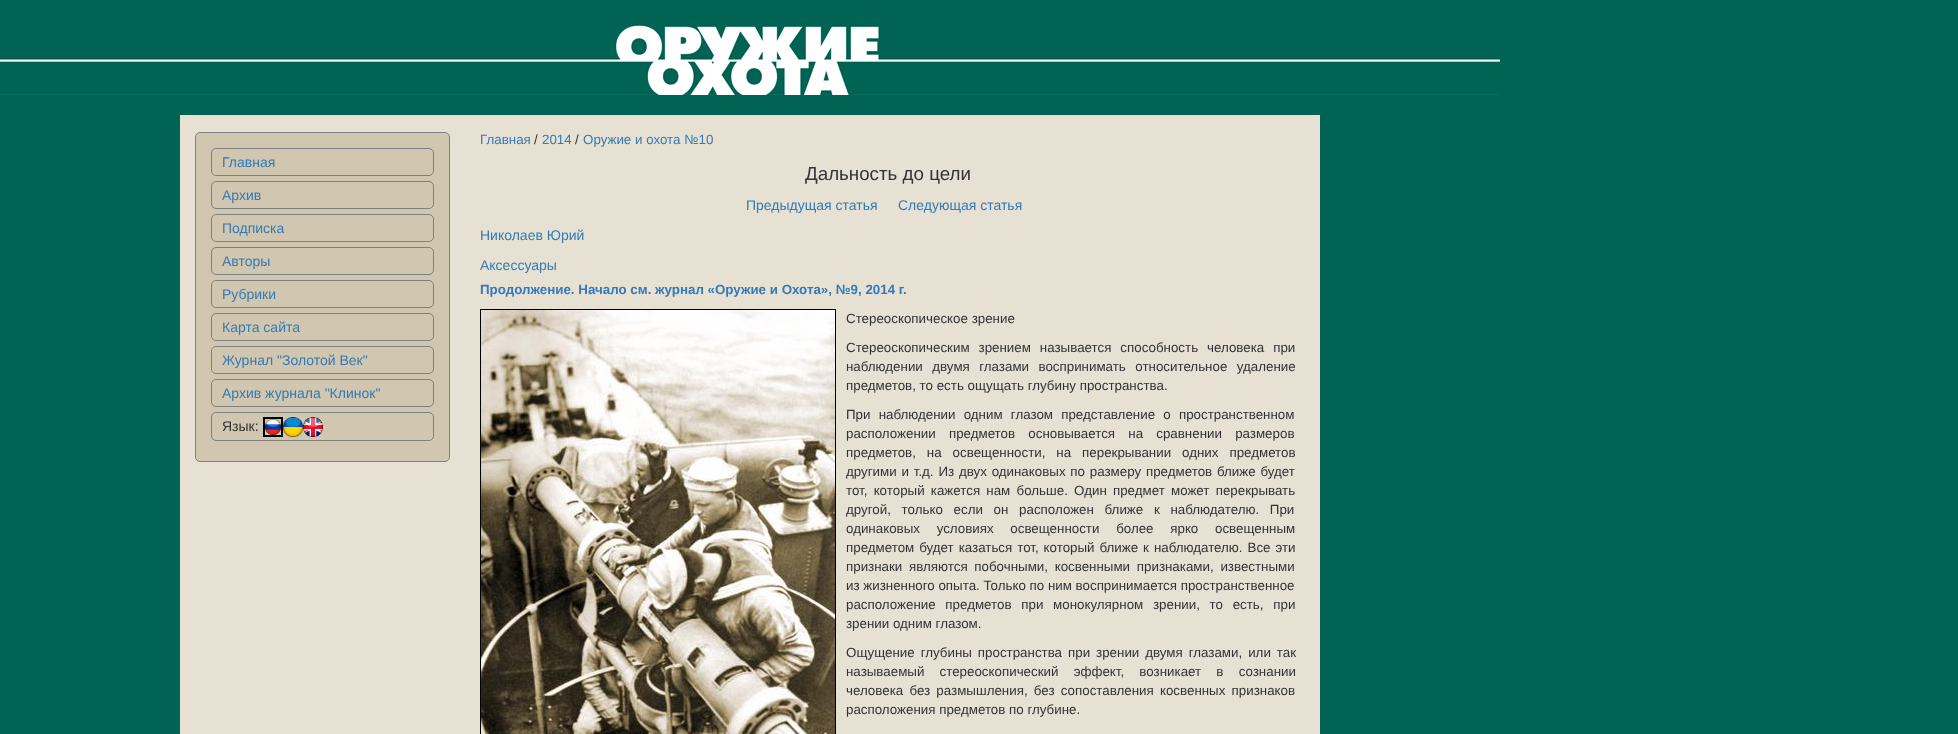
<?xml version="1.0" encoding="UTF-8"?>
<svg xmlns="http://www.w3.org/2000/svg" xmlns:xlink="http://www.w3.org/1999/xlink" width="1958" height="734">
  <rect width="100%" height="100%" fill="#006354" />
  <image x="0" y="58" width="1500" height="37" xlink:href="image1.png" />
  <image x="615" y="24" width="265" height="71" xlink:href="image2.png" />
  <rect x="180" y="115" width="1140" height="619" fill="#e7e1d4" />
  <rect x="195.5" y="132.5" width="254" height="329" rx="4.5" fill="#d1c7b0" stroke="#808080" />
  <rect x="211.5" y="148.5" width="222" height="27" rx="4.5" fill="none" stroke="#808080" />
  <rect x="211.5" y="181.5" width="222" height="27" rx="4.5" fill="none" stroke="#808080" />
  <rect x="211.5" y="214.5" width="222" height="27" rx="4.5" fill="none" stroke="#808080" />
  <rect x="211.5" y="247.5" width="222" height="27" rx="4.5" fill="none" stroke="#808080" />
  <rect x="211.5" y="280.5" width="222" height="27" rx="4.5" fill="none" stroke="#808080" />
  <rect x="211.5" y="313.5" width="222" height="27" rx="4.5" fill="none" stroke="#808080" />
  <rect x="211.5" y="346.5" width="222" height="27" rx="4.5" fill="none" stroke="#808080" />
  <rect x="211.5" y="379.5" width="222" height="27" rx="4.5" fill="none" stroke="#808080" />
  <rect x="211.5" y="412.5" width="222" height="28" rx="4.5" fill="none" stroke="#808080" />
  <rect x="264" y="418" width="18" height="18" fill="none" stroke="#000000" stroke-width="2" />
  <image x="282" y="417" width="21" height="20" xlink:href="image3.png" />
  <image x="303" y="417" width="20" height="20" xlink:href="image4.png" />
  <image x="265" y="419" width="16" height="16" xlink:href="image5.png" />
  <rect x="480.5" y="309.5" width="355" height="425" fill="none" stroke="#000000" />
  <image x="481" y="310" width="354" height="424" xlink:href="image6.png" />
  <text x="222" y="167" style="font-family: Liberation Sans; font-size: 14px; fill: #337ab7">Главная</text>
  <text x="222" y="200" style="font-family: Liberation Sans; font-size: 14px; fill: #337ab7">Архив</text>
  <text x="222" y="233" style="font-family: Liberation Sans; font-size: 14px; fill: #337ab7">Подписка</text>
  <text x="222" y="266" style="font-family: Liberation Sans; font-size: 14px; fill: #337ab7">Авторы</text>
  <text x="222" y="299" style="font-family: Liberation Sans; font-size: 14px; fill: #337ab7">Рубрики</text>
  <text x="222" y="332" style="font-family: Liberation Sans; font-size: 14px; fill: #337ab7">Карта сайта</text>
  <text x="222" y="365" style="font-family: Liberation Sans; font-size: 14px; fill: #337ab7">Журнал "Золотой Век"</text>
  <text x="222" y="398" style="font-family: Liberation Sans; font-size: 14px; fill: #337ab7">Архив журнала "Клинок"</text>
  <text x="222" y="431" style="font-family: Liberation Sans; font-size: 14px; fill: #333333">Язык:</text>
  <text x="480" y="144" style="font-family: Liberation Sans; font-size: 13.35px; fill: #337ab7">Главная</text>
  <text x="534" y="144" style="font-family: Liberation Sans; font-size: 13.35px; fill: #333333">/</text>
  <text x="542" y="144" style="font-family: Liberation Sans; font-size: 13.35px; fill: #337ab7">2014</text>
  <text x="575" y="144" style="font-family: Liberation Sans; font-size: 13.35px; fill: #333333">/</text>
  <text x="583" y="144" style="font-family: Liberation Sans; font-size: 13.35px; fill: #337ab7">Оружие и охота №10</text>
  <text x="805" y="180" style="font-family: Liberation Sans; font-size: 18.75px; fill: #333333">Дальность до цели</text>
  <text x="746" y="210" style="font-family: Liberation Sans; font-size: 14px; fill: #337ab7">Предыдущая статья</text>
  <text x="898" y="210" style="font-family: Liberation Sans; font-size: 14px; fill: #337ab7">Следующая статья</text>
  <text x="480" y="240" style="font-family: Liberation Sans; font-size: 14px; fill: #337ab7">Николаев Юрий</text>
  <text x="480" y="270" style="font-family: Liberation Sans; font-size: 14px; fill: #337ab7">Аксессуары</text>
  <text x="480" y="294" style="font-family: Liberation Sans; font-size: 13.35px; font-weight: bold; fill: #337ab7">Продолжение. Начало см. журнал «Оружие и Охота», №9, 2014 г.</text>
  <text x="846" y="323" style="font-family: Liberation Sans; font-size: 13.35px; fill: #333333">Стереоскопическое зрение</text>
  <text x="846" y="352" word-spacing="5.25" style="font-family: Liberation Sans; font-size: 13.35px; fill: #333333">Стереоскопическим зрением называется способность человека при</text>
  <text x="846" y="371" word-spacing="5.75" style="font-family: Liberation Sans; font-size: 13.35px; fill: #333333">наблюдении двумя глазами воспринимать относительное удаление</text>
  <text x="846" y="390" style="font-family: Liberation Sans; font-size: 13.35px; fill: #333333">предметов, то есть ощущать глубину пространства.</text>
  <text x="846" y="419" word-spacing="4.5" style="font-family: Liberation Sans; font-size: 13.35px; fill: #333333">При наблюдении одним глазом представление о пространственном</text>
  <text x="846" y="438" word-spacing="9.5" style="font-family: Liberation Sans; font-size: 13.35px; fill: #333333">расположении предметов основывается на сравнении размеров</text>
  <text x="846" y="457" word-spacing="7.25" style="font-family: Liberation Sans; font-size: 13.35px; fill: #333333">предметов, на освещенности, на перекрывании одних предметов</text>
  <text x="846" y="476" word-spacing="1.1" style="font-family: Liberation Sans; font-size: 13.35px; fill: #333333">другими и т.д. Из двух одинаковых по размеру предметов ближе будет</text>
  <text x="846" y="495" word-spacing="2.5" style="font-family: Liberation Sans; font-size: 13.35px; fill: #333333">тот, который кажется нам больше. Один предмет может перекрывать</text>
  <text x="846" y="514" word-spacing="7" style="font-family: Liberation Sans; font-size: 13.35px; fill: #333333">другой, только если он расположен ближе к наблюдателю. При</text>
  <text x="846" y="533" word-spacing="13" style="font-family: Liberation Sans; font-size: 13.35px; fill: #333333">одинаковых условиях освещенности более ярко освещенным</text>
  <text x="846" y="552" word-spacing="1.25" style="font-family: Liberation Sans; font-size: 13.35px; fill: #333333">предметом будет казаться тот, который ближе к наблюдателю. Все эти</text>
  <text x="846" y="571" word-spacing="3" style="font-family: Liberation Sans; font-size: 13.35px; fill: #333333">признаки являются побочными, косвенными признаками, известными</text>
  <text x="846" y="590" style="font-family: Liberation Sans; font-size: 13.35px; fill: #333333">из жизненного опыта. Только по ним воспринимается пространственное</text>
  <text x="846" y="609" word-spacing="6" style="font-family: Liberation Sans; font-size: 13.35px; fill: #333333">расположение предметов при монокулярном зрении, то есть, при</text>
  <text x="846" y="628" style="font-family: Liberation Sans; font-size: 13.35px; fill: #333333">зрении одним глазом.</text>
  <text x="846" y="657" word-spacing="2.25" style="font-family: Liberation Sans; font-size: 13.35px; fill: #333333">Ощущение глубины пространства при зрении двумя глазами, или так</text>
  <text x="846" y="676" word-spacing="11.5" style="font-family: Liberation Sans; font-size: 13.35px; fill: #333333">называемый стереоскопический эффект, возникает в сознании</text>
  <text x="846" y="695" word-spacing="2.5" style="font-family: Liberation Sans; font-size: 13.35px; fill: #333333">человека без размышления, без сопоставления косвенных признаков</text>
  <text x="846" y="714" style="font-family: Liberation Sans; font-size: 13.35px; fill: #333333">расположения предметов по глубине.</text>
</svg>
